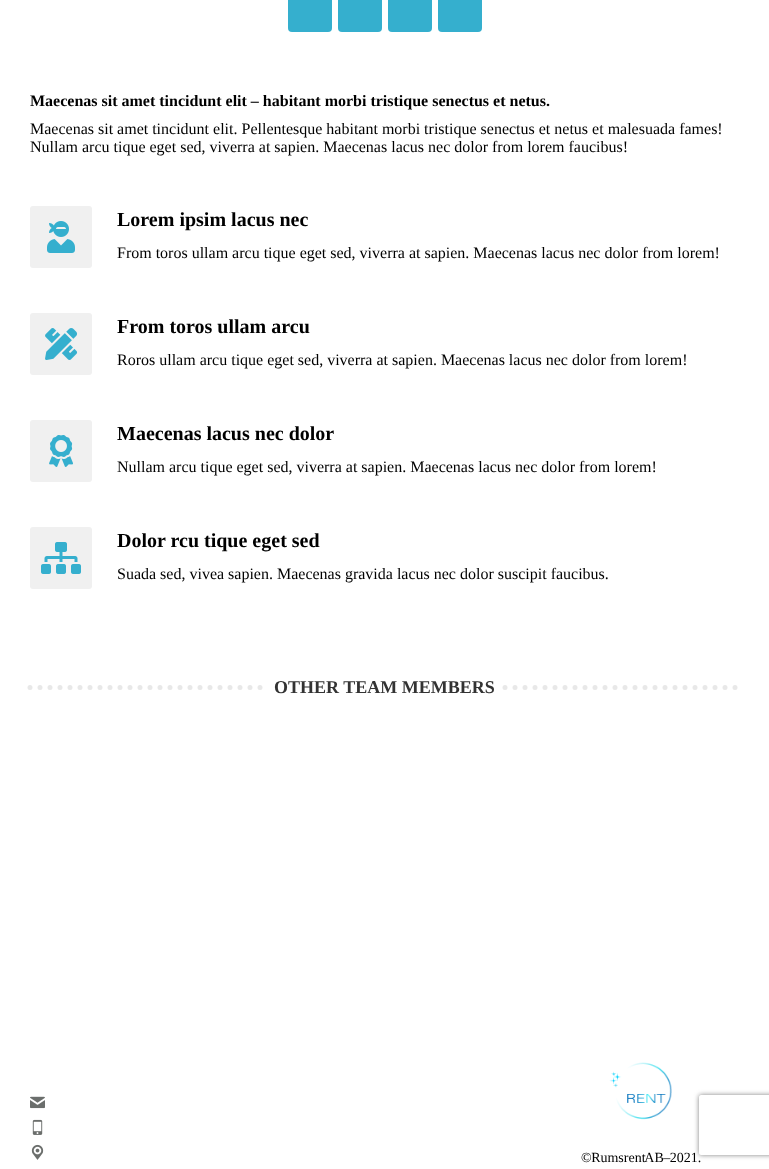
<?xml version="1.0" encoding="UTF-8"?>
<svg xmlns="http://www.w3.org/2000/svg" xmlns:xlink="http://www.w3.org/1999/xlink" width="769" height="1169">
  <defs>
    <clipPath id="clip1"><path d="M 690 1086 h 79 v 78 h -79 z m 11 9 h 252 c 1 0 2 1 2 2 v 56 c 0 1 -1 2 -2 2 h -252 c -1 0 -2 -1 -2 -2 v -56 c 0 -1 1 -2 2 -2 z" clip-rule="evenodd" /></clipPath>
  </defs>
  <rect width="100%" height="100%" fill="#ffffff" />
  <rect x="288" y="-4" width="44" height="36" rx="4" fill="#35afce" />
  <rect x="338" y="-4" width="44" height="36" rx="4" fill="#35afce" />
  <rect x="388" y="-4" width="44" height="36" rx="4" fill="#35afce" />
  <rect x="438" y="-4" width="44" height="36" rx="4" fill="#35afce" />
  <rect x="30" y="206" width="62" height="62" rx="3" fill="#f0f0f0" />
  <image x="47" y="221" width="28" height="32" xlink:href="image1.png" />
  <rect x="30" y="313" width="62" height="62" rx="3" fill="#f0f0f0" />
  <image x="45" y="328" width="33" height="32" xlink:href="image2.png" />
  <rect x="30" y="420" width="62" height="62" rx="3" fill="#f0f0f0" />
  <image x="49" y="435" width="24" height="32" xlink:href="image3.png" />
  <rect x="30" y="527" width="62" height="62" rx="3" fill="#f0f0f0" />
  <image x="41" y="542" width="40" height="32" xlink:href="image4.png" />
  <path d="M 30 687.5 h 234" fill="none" stroke="#e8e8e8" stroke-width="5" stroke-linecap="round" stroke-dasharray="0 10" />
  <path d="M 505 687.5 h 234" fill="none" stroke="#e8e8e8" stroke-width="5" stroke-linecap="round" stroke-dasharray="0 10" />
  <image x="30" y="1096" width="15" height="13" xlink:href="image5.png" />
  <image x="32" y="1119" width="11" height="16" xlink:href="image6.png" />
  <image x="31" y="1144" width="13" height="16" xlink:href="image7.png" />
  <image x="609" y="1062" width="63" height="58" xlink:href="image8.png" />
  <g clip-path="url(#clip1)">
    <rect x="699" y="1095" width="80" height="60" rx="2" fill="#808080" filter="blur(2.5px)" />
  </g>
  <text x="30" y="106" style="font-family: Liberation Serif; font-size: 16px; font-weight: bold; fill: #000000">Maecenas sit amet tincidunt elit – habitant morbi tristique senectus et netus.</text>
  <text x="30" y="134" style="font-family: Liberation Serif; font-size: 16px; fill: #000000">Maecenas sit amet tincidunt elit. Pellentesque habitant morbi tristique senectus et netus et malesuada fames!</text>
  <text x="30" y="152" style="font-family: Liberation Serif; font-size: 16px; fill: #000000">Nullam arcu tique eget sed, viverra at sapien. Maecenas lacus nec dolor from lorem faucibus!</text>
  <text x="117" y="226" style="font-family: Liberation Serif; font-size: 20px; font-weight: bold; fill: #000000">Lorem ipsim lacus nec</text>
  <text x="117" y="258" style="font-family: Liberation Serif; font-size: 16px; fill: #000000">From toros ullam arcu tique eget sed, viverra at sapien. Maecenas lacus nec dolor from lorem!</text>
  <text x="117" y="333" style="font-family: Liberation Serif; font-size: 20px; font-weight: bold; fill: #000000">From toros ullam arcu</text>
  <text x="117" y="365" style="font-family: Liberation Serif; font-size: 16px; fill: #000000">Roros ullam arcu tique eget sed, viverra at sapien. Maecenas lacus nec dolor from lorem!</text>
  <text x="117" y="440" style="font-family: Liberation Serif; font-size: 20px; font-weight: bold; fill: #000000">Maecenas lacus nec dolor</text>
  <text x="117" y="472" style="font-family: Liberation Serif; font-size: 16px; fill: #000000">Nullam arcu tique eget sed, viverra at sapien. Maecenas lacus nec dolor from lorem!</text>
  <text x="117" y="547" style="font-family: Liberation Serif; font-size: 20px; font-weight: bold; fill: #000000">Dolor rcu tique eget sed</text>
  <text x="117" y="579" style="font-family: Liberation Serif; font-size: 16px; fill: #000000">Suada sed, vivea sapien. Maecenas gravida lacus nec dolor suscipit faucibus.</text>
  <text x="274" y="693" style="font-family: Liberation Serif; font-size: 18px; font-weight: bold; fill: #333333">OTHER TEAM MEMBERS</text>
  <text x="581" y="1162" word-spacing="-4" style="font-family: Liberation Serif; font-size: 14px; fill: #000000">© Rumsrent AB – 2021.</text>
</svg>
